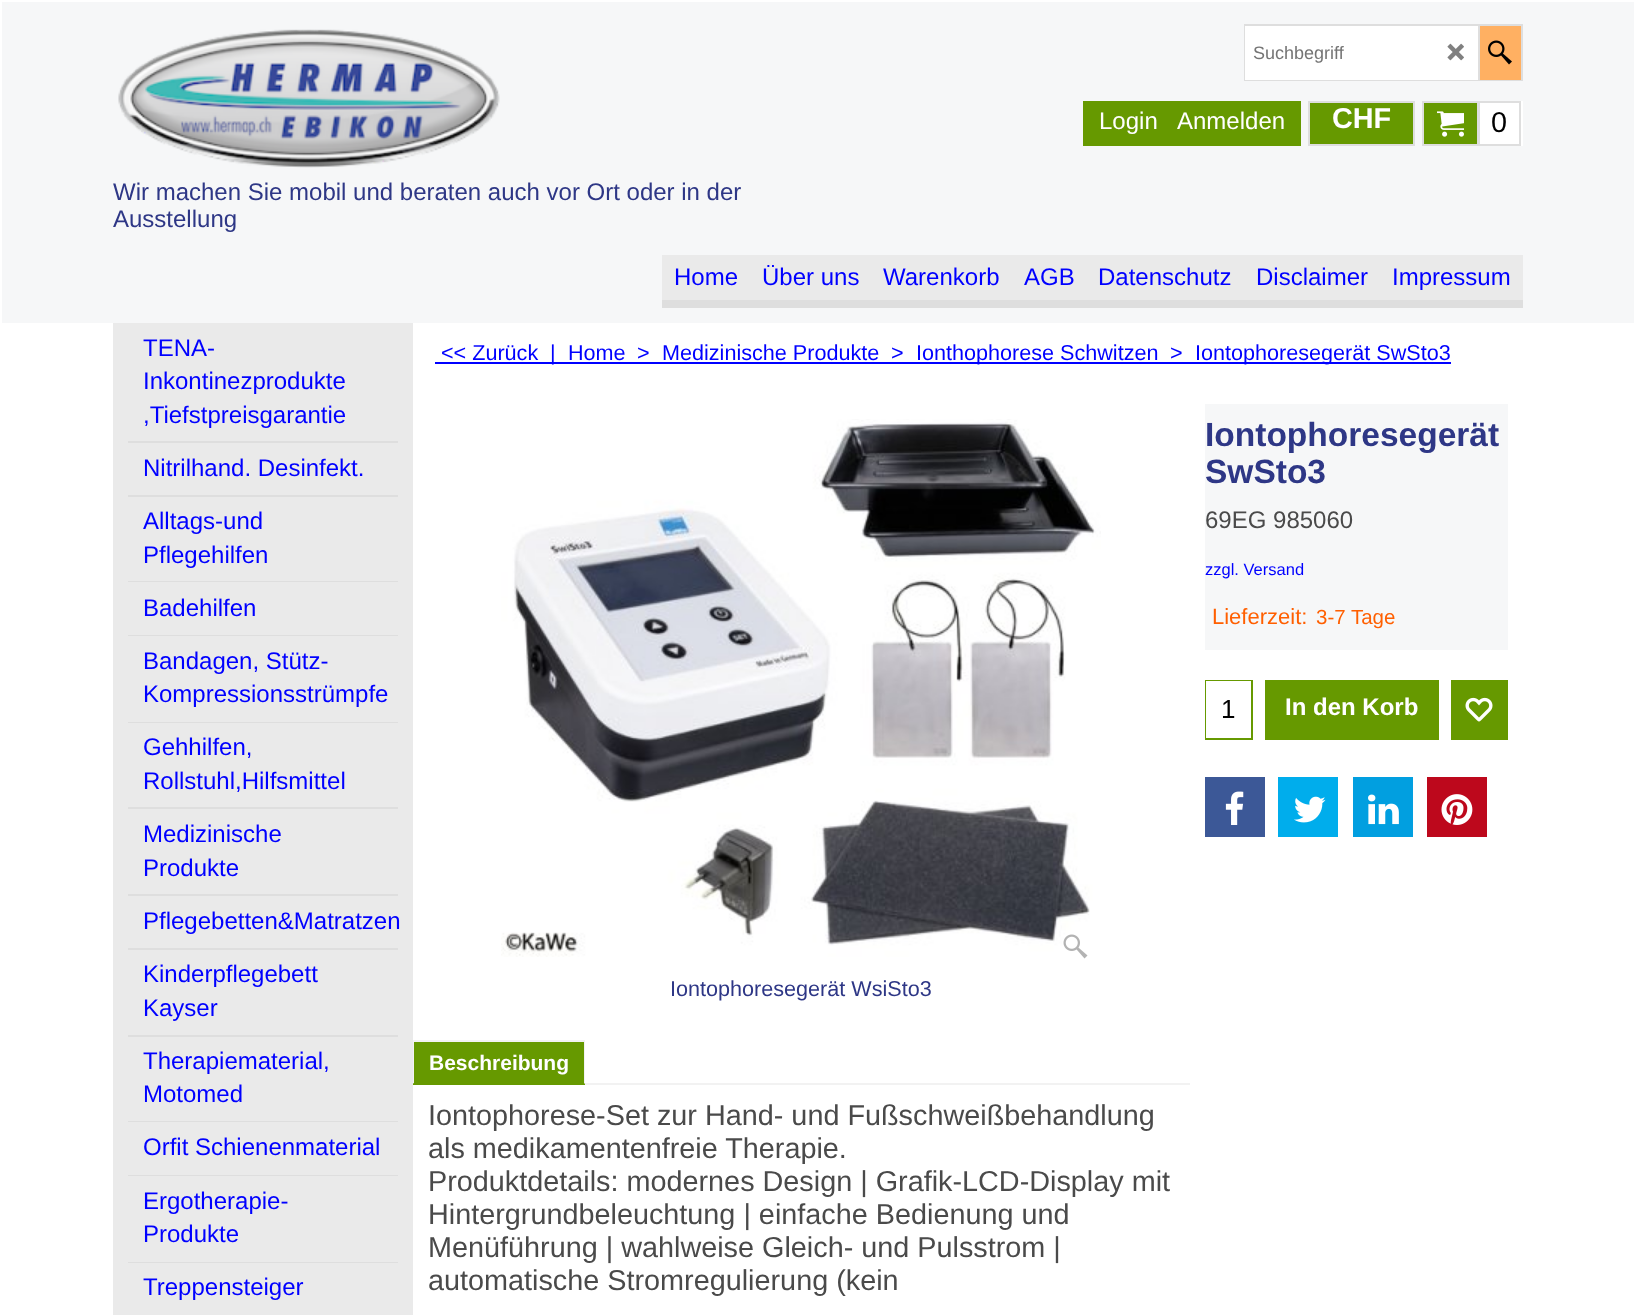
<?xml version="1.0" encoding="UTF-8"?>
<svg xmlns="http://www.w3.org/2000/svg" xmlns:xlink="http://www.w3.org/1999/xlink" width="1634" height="1315">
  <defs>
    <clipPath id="clip1"><rect x="413" y="1040" width="777" height="45" /></clipPath>
  </defs>
  <rect width="100%" height="100%" fill="#ffffff" />
  <rect x="2" y="2" width="1632" height="321" fill="#f6f7f8" />
  <rect x="1245" y="25" width="277" height="55" fill="none" stroke="#dedede" stroke-width="2" />
  <rect x="1245" y="26" width="233" height="54" fill="#ffffff" />
  <image x="1447" y="43" width="17" height="18" xlink:href="image1.png" />
  <rect x="1480" y="26" width="41" height="54" fill="#ffb062" />
  <rect x="1478" y="26" width="2" height="54" fill="#dedede" />
  <image x="1488" y="40" width="24" height="25" xlink:href="image2.png" />
  <rect x="1083" y="101" width="218" height="45" fill="#669900" />
  <rect x="1309" y="102" width="105" height="43" fill="#669900" stroke="#dedede" stroke-width="2" />
  <rect x="1480" y="101" width="43" height="45" fill="#ffffff" />
  <rect x="1423" y="102" width="55" height="43" fill="#669900" stroke="#dedede" stroke-width="2" />
  <image x="1437" y="111" width="27" height="26" xlink:href="image3.png" />
  <rect x="1479" y="102" width="41" height="43" fill="none" stroke="#dedede" stroke-width="2" />
  <image x="118" y="29" width="382" height="139" xlink:href="image4.png" />
  <rect x="662" y="300" width="861" height="8" fill="#dedede" />
  <rect x="662" y="255" width="861" height="45" fill="#eaeaea" />
  <rect x="113" y="323" width="300" height="992" fill="#eaeaea" />
  <rect x="128" y="441" width="270" height="2" fill="#dedede" />
  <rect x="128" y="495" width="270" height="2" fill="#dedede" />
  <rect x="128" y="581" width="270" height="1" fill="#dedede" />
  <rect x="128" y="635" width="270" height="1" fill="#dedede" />
  <rect x="128" y="722" width="270" height="1" fill="#dedede" />
  <rect x="128" y="807" width="270" height="2" fill="#dedede" />
  <rect x="128" y="894" width="270" height="2" fill="#dedede" />
  <rect x="128" y="948" width="270" height="2" fill="#dedede" />
  <rect x="128" y="1035" width="270" height="2" fill="#dedede" />
  <rect x="128" y="1121" width="270" height="1" fill="#dedede" />
  <rect x="128" y="1175" width="270" height="1" fill="#dedede" />
  <rect x="128" y="1262" width="270" height="1" fill="#dedede" />
  <rect x="435" y="362" width="1016" height="2" fill="#0000ff" />
  <rect x="1205" y="404" width="303" height="246" fill="#f6f7f8" />
  <rect x="1205" y="680" width="48" height="60" fill="#669900" />
  <rect x="1206" y="681" width="45" height="57" fill="#ffffff" />
  <rect x="1265" y="680" width="174" height="60" fill="#669900" />
  <rect x="1451" y="680" width="57" height="60" fill="#669900" />
  <image x="1465" y="697" width="28" height="25" xlink:href="image5.png" />
  <rect x="1205" y="777" width="60" height="60" fill="#3c5897" />
  <image x="1225" y="791" width="19" height="34" xlink:href="image6.png" />
  <rect x="1278" y="777" width="60" height="60" fill="#00adec" />
  <image x="1294" y="796" width="32" height="27" xlink:href="image7.png" />
  <rect x="1353" y="777" width="60" height="60" fill="#019fe0" />
  <image x="1368" y="794" width="31" height="31" xlink:href="image8.png" />
  <rect x="1427" y="777" width="60" height="60" fill="#bd081c" />
  <image x="1441" y="794" width="32" height="31" xlink:href="image9.png" />
  <image x="501" y="419" width="600" height="538" xlink:href="image10.png" />
  <image x="1063" y="934" width="25" height="25" xlink:href="image11.png" />
  <rect x="413" y="1042" width="172" height="43" fill="#669900" />
  <rect x="413" y="1040" width="172" height="2" fill="#f2f2f2" />
  <path d="M 585 1040 v 44 l -1 -1 v -42 z" fill="#f2f2f2" />
  <g clip-path="url(#clip1)">
    <path d="M 412 1084 v -44 l 2 1 v 42 z" fill="#f2f2f2" />
  </g>
  <rect x="585" y="1083" width="605" height="2" fill="#f2f2f2" />
  <text x="1253" y="59" style="font-family: Liberation Sans; font-size: 18px; fill: #757575">Suchbegriff</text>
  <text x="1099" y="129" style="font-family: Liberation Sans; font-size: 24px; fill: #ffffff">Login</text>
  <text x="1177" y="129" style="font-family: Liberation Sans; font-size: 24px; fill: #ffffff">Anmelden</text>
  <text x="1332" y="128" style="font-family: Liberation Sans; font-size: 28.8px; font-weight: bold; fill: #ffffff">CHF</text>
  <text x="1491" y="132" style="font-family: Liberation Sans; font-size: 28.8px; fill: #000000">0</text>
  <text x="113" y="200" style="font-family: Liberation Sans; font-size: 24px; fill: #2e3786">Wir machen Sie mobil und beraten auch vor Ort oder in der</text>
  <text x="113" y="227" style="font-family: Liberation Sans; font-size: 24px; fill: #2e3786">Ausstellung</text>
  <text x="674" y="285" style="font-family: Liberation Sans; font-size: 24px; fill: #0000ff">Home</text>
  <text x="762" y="285" style="font-family: Liberation Sans; font-size: 24px; fill: #0000ff">Über uns</text>
  <text x="883" y="285" style="font-family: Liberation Sans; font-size: 24px; fill: #0000ff">Warenkorb</text>
  <text x="1024" y="285" style="font-family: Liberation Sans; font-size: 24px; fill: #0000ff">AGB</text>
  <text x="1098" y="285" style="font-family: Liberation Sans; font-size: 24px; fill: #0000ff">Datenschutz</text>
  <text x="1256" y="285" style="font-family: Liberation Sans; font-size: 24px; fill: #0000ff">Disclaimer</text>
  <text x="1392" y="285" style="font-family: Liberation Sans; font-size: 24px; fill: #0000ff">Impressum</text>
  <text x="143" y="356" style="font-family: Liberation Sans; font-size: 24px; fill: #0000ff">TENA-</text>
  <text x="143" y="389" style="font-family: Liberation Sans; font-size: 24px; fill: #0000ff">Inkontinezprodukte</text>
  <text x="143" y="423" style="font-family: Liberation Sans; font-size: 24px; fill: #0000ff">,Tiefstpreisgarantie</text>
  <text x="143" y="476" style="font-family: Liberation Sans; font-size: 24px; fill: #0000ff">Nitrilhand. Desinfekt.</text>
  <text x="143" y="529" style="font-family: Liberation Sans; font-size: 24px; fill: #0000ff">Alltags-und</text>
  <text x="143" y="563" style="font-family: Liberation Sans; font-size: 24px; fill: #0000ff">Pflegehilfen</text>
  <text x="143" y="616" style="font-family: Liberation Sans; font-size: 24px; fill: #0000ff">Badehilfen</text>
  <text x="143" y="669" style="font-family: Liberation Sans; font-size: 24px; fill: #0000ff">Bandagen, Stütz-</text>
  <text x="143" y="702" style="font-family: Liberation Sans; font-size: 24px; fill: #0000ff">Kompressionsstrümpfe</text>
  <text x="143" y="755" style="font-family: Liberation Sans; font-size: 24px; fill: #0000ff">Gehhilfen,</text>
  <text x="143" y="789" style="font-family: Liberation Sans; font-size: 24px; fill: #0000ff">Rollstuhl,Hilfsmittel</text>
  <text x="143" y="842" style="font-family: Liberation Sans; font-size: 24px; fill: #0000ff">Medizinische</text>
  <text x="143" y="876" style="font-family: Liberation Sans; font-size: 24px; fill: #0000ff">Produkte</text>
  <text x="143" y="929" style="font-family: Liberation Sans; font-size: 24px; fill: #0000ff">Pflegebetten&amp;Matratzen</text>
  <text x="143" y="982" style="font-family: Liberation Sans; font-size: 24px; fill: #0000ff">Kinderpflegebett</text>
  <text x="143" y="1016" style="font-family: Liberation Sans; font-size: 24px; fill: #0000ff">Kayser</text>
  <text x="143" y="1069" style="font-family: Liberation Sans; font-size: 24px; fill: #0000ff">Therapiematerial,</text>
  <text x="143" y="1102" style="font-family: Liberation Sans; font-size: 24px; fill: #0000ff">Motomed</text>
  <text x="143" y="1155" style="font-family: Liberation Sans; font-size: 24px; fill: #0000ff">Orfit Schienenmaterial</text>
  <text x="143" y="1209" style="font-family: Liberation Sans; font-size: 24px; fill: #0000ff">Ergotherapie-</text>
  <text x="143" y="1242" style="font-family: Liberation Sans; font-size: 24px; fill: #0000ff">Produkte</text>
  <text x="143" y="1295" style="font-family: Liberation Sans; font-size: 24px; fill: #0000ff">Treppensteiger</text>
  <text x="441" y="360" style="font-family: Liberation Sans; font-size: 21.6px; fill: #0000ff">&lt;&lt; Zurück</text>
  <text x="550" y="360" style="font-family: Liberation Sans; font-size: 21.6px; fill: #0000ff">|</text>
  <text x="568" y="360" style="font-family: Liberation Sans; font-size: 21.6px; fill: #0000ff">Home</text>
  <text x="637" y="360" style="font-family: Liberation Sans; font-size: 21.6px; fill: #0000ff">&gt;</text>
  <text x="662" y="360" style="font-family: Liberation Sans; font-size: 21.6px; fill: #0000ff">Medizinische Produkte</text>
  <text x="891" y="360" style="font-family: Liberation Sans; font-size: 21.6px; fill: #0000ff">&gt;</text>
  <text x="916" y="360" style="font-family: Liberation Sans; font-size: 21.6px; fill: #0000ff">Ionthophorese Schwitzen</text>
  <text x="1170" y="360" style="font-family: Liberation Sans; font-size: 21.6px; fill: #0000ff">&gt;</text>
  <text x="1195" y="360" style="font-family: Liberation Sans; font-size: 21.6px; fill: #0000ff">Iontophoresegerät SwSto3</text>
  <text x="1205" y="446" style="font-family: Liberation Sans; font-size: 33.5px; font-weight: bold; fill: #2e3786">Iontophoresegerät</text>
  <text x="1205" y="483" style="font-family: Liberation Sans; font-size: 33.5px; font-weight: bold; fill: #2e3786">SwSto3</text>
  <text x="1205" y="528" style="font-family: Liberation Sans; font-size: 24px; fill: #4a4a4a">69EG 985060</text>
  <text x="1205" y="575" style="font-family: Liberation Sans; font-size: 16.5px; fill: #0000ff">zzgl. Versand</text>
  <text x="1212" y="624" style="font-family: Liberation Sans; font-size: 22px; fill: #ff5f00">Lieferzeit:</text>
  <text x="1316" y="624" style="font-family: Liberation Sans; font-size: 20.5px; fill: #ff5f00">3-7 Tage</text>
  <text x="1221" y="718" style="font-family: Liberation Sans; font-size: 26px; fill: #000000">1</text>
  <text x="1285" y="715" style="font-family: Liberation Sans; font-size: 24px; font-weight: bold; fill: #ffffff">In den Korb</text>
  <text x="670" y="996" style="font-family: Liberation Sans; font-size: 21.6px; fill: #2e3786">Iontophoresegerät WsiSto3</text>
  <text x="429" y="1070" style="font-family: Liberation Sans; font-size: 21px; font-weight: bold; fill: #ffffff">Beschreibung</text>
  <text x="428" y="1125" style="font-family: Liberation Sans; font-size: 28.8px; fill: #4a4a4a">Iontophorese-Set zur Hand- und Fußschweißbehandlung</text>
  <text x="428" y="1158" style="font-family: Liberation Sans; font-size: 28.8px; fill: #4a4a4a">als medikamentenfreie Therapie.</text>
  <text x="428" y="1191" style="font-family: Liberation Sans; font-size: 28.8px; fill: #4a4a4a">Produktdetails: modernes Design | Grafik-LCD-Display mit</text>
  <text x="428" y="1224" style="font-family: Liberation Sans; font-size: 28.8px; fill: #4a4a4a">Hintergrundbeleuchtung | einfache Bedienung und</text>
  <text x="428" y="1257" style="font-family: Liberation Sans; font-size: 28.8px; fill: #4a4a4a">Menüführung | wahlweise Gleich- und Pulsstrom |</text>
  <text x="428" y="1290" style="font-family: Liberation Sans; font-size: 28.8px; fill: #4a4a4a">automatische Stromregulierung (kein</text>
</svg>
